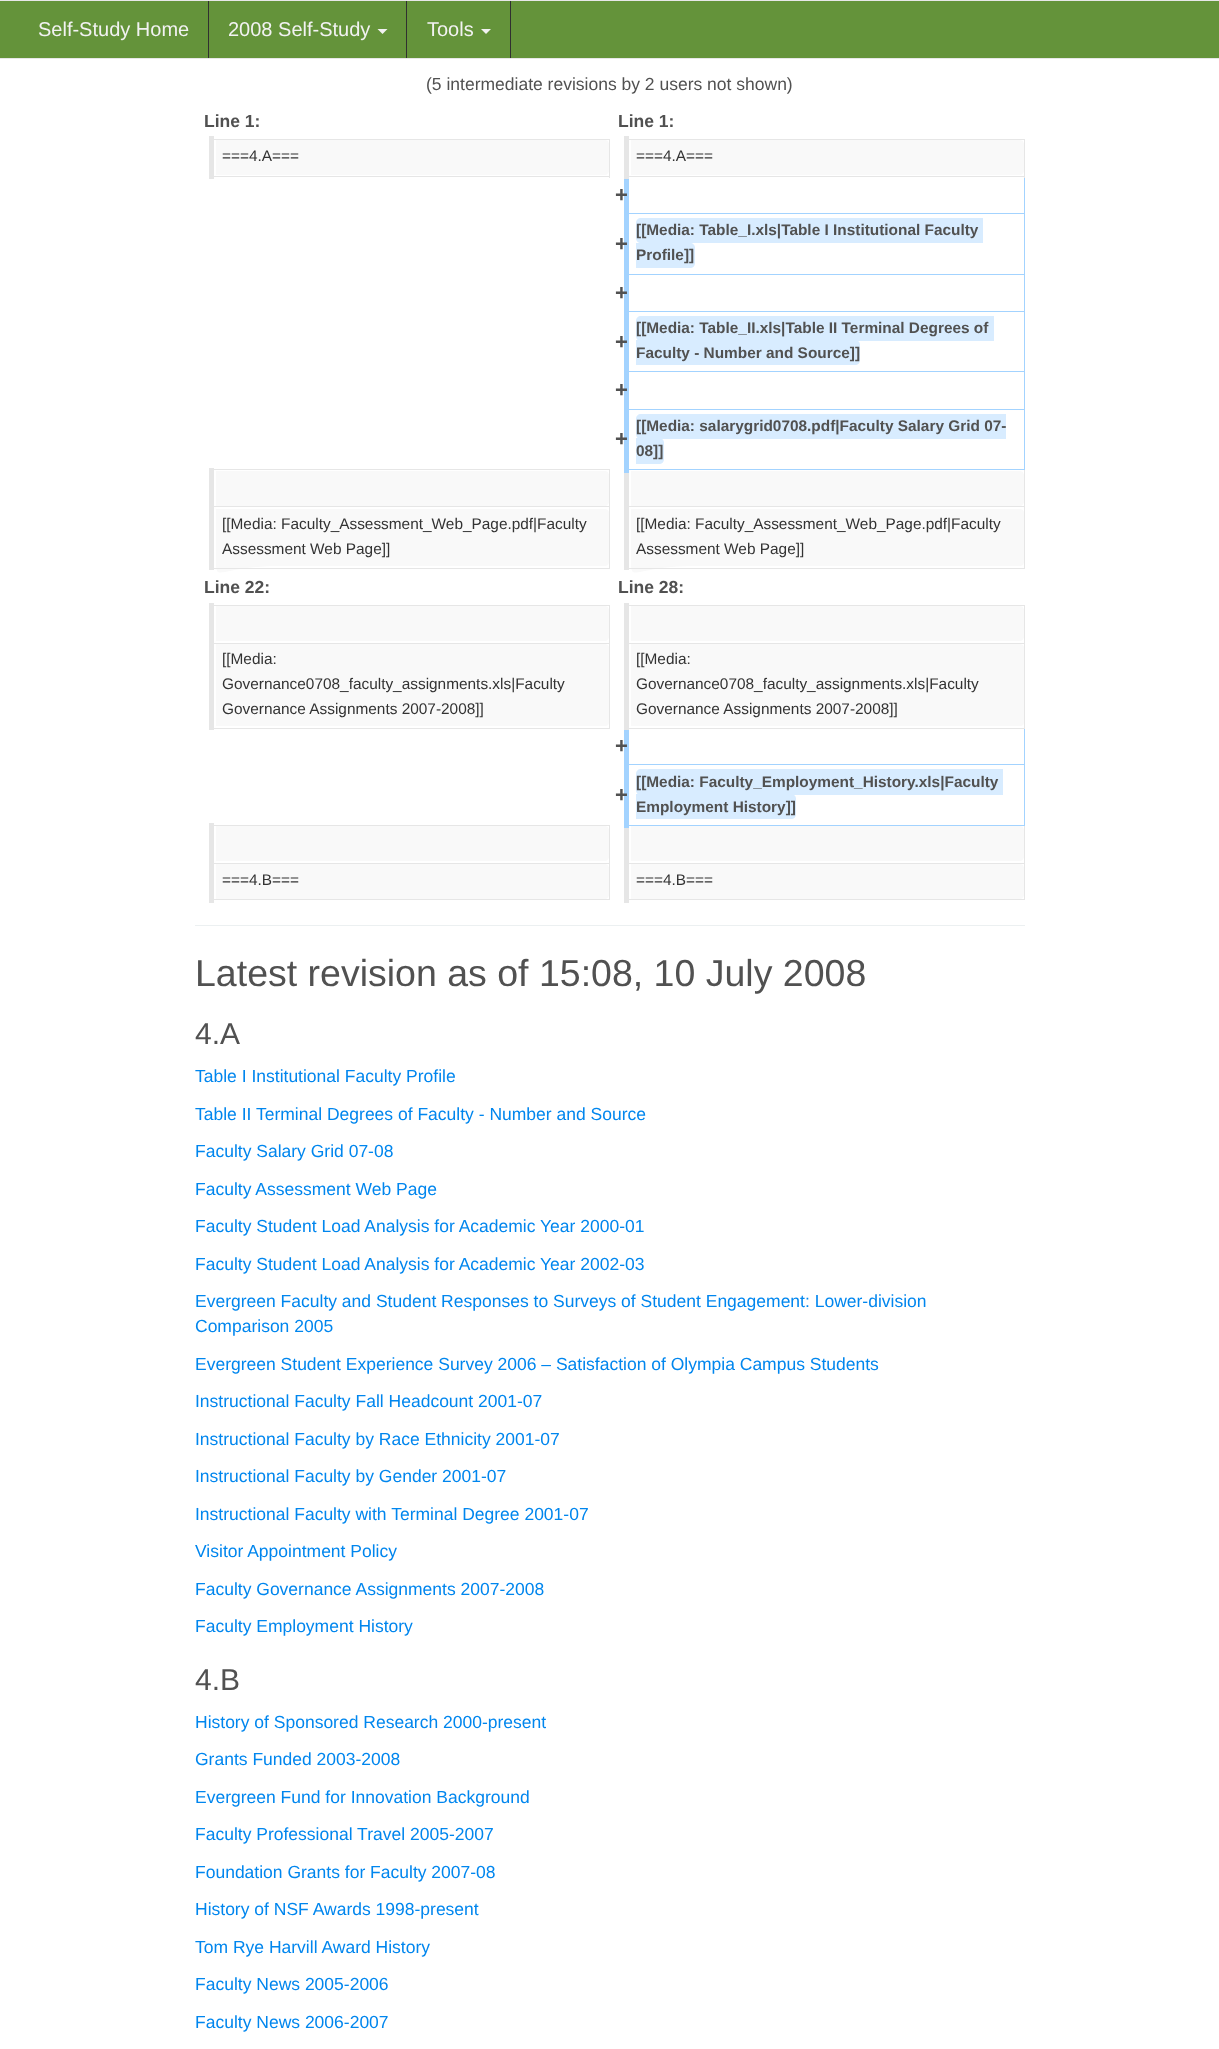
<?xml version="1.0" encoding="UTF-8"?>
<svg xmlns="http://www.w3.org/2000/svg" xmlns:xlink="http://www.w3.org/1999/xlink" width="1219" height="2049">
  <rect width="100%" height="100%" fill="#ffffff" />
  <rect y="1" width="1219" height="57" fill="#64933a" />
  <rect width="1219" height="1" fill="#e7e7e7" />
  <rect y="58" width="1219" height="1" fill="#e7e7e7" />
  <rect x="208" y="1" width="1" height="57" fill="#303030" />
  <rect x="406" y="1" width="1" height="57" fill="#303030" />
  <path d="M 377.5 29 h 10 l -5 5 z" fill="#f2f2f2" />
  <rect x="510" y="1" width="1" height="57" fill="#303030" />
  <path d="M 481 29 h 10 l -5 5 z" fill="#f2f2f2" />
  <path d="M 216 140 h 389 c 6 0 4 10 4 13 v 9 c 0 3 2 13 -4 13 h -389 z" fill="#f9f9f9" />
  <rect x="211" y="139" width="399" height="1" fill="#e6e6e6" />
  <rect x="609" y="139" width="1" height="39" fill="#e6e6e6" />
  <rect x="211" y="176" width="399" height="1" fill="#e6e6e6" />
  <rect x="209" y="136" width="5" height="43" fill="#e6e6e6" />
  <path d="M 631 140 h 389 c 6 0 4 10 4 13 v 9 c 0 3 2 13 -4 13 h -389 z" fill="#f9f9f9" />
  <rect x="626" y="139" width="399" height="1" fill="#e6e6e6" />
  <rect x="626" y="213" width="399" height="1" fill="#a3d3ff" />
  <rect x="626" y="274" width="399" height="1" fill="#a3d3ff" />
  <rect x="626" y="311" width="399" height="1" fill="#a3d3ff" />
  <rect x="626" y="371" width="399" height="1" fill="#a3d3ff" />
  <rect x="626" y="409" width="399" height="1" fill="#a3d3ff" />
  <path d="M 631 471 h 389 c 6 0 4 10 4 13 v 9 c 0 3 2 13 -4 13 h -389 z" fill="#f9f9f9" />
  <path d="M 631 509 h 389 c 2 0 4 1 4 4 v 41 c 0 3 2 12 -4 12 h -324 c -68 0 -65 21 -65 -12 z" fill="#f9f9f9" />
  <rect x="626" y="506" width="399" height="1" fill="#e6e6e6" />
  <rect x="1024" y="469" width="1" height="100" fill="#e6e6e6" />
  <rect x="1024" y="409" width="1" height="61" fill="#a3d3ff" />
  <rect x="1024" y="371" width="1" height="39" fill="#a3d3ff" />
  <rect x="1024" y="311" width="1" height="62" fill="#a3d3ff" />
  <rect x="1024" y="274" width="1" height="39" fill="#a3d3ff" />
  <rect x="1024" y="176" width="1" height="99" fill="#a3d3ff" />
  <rect x="1024" y="139" width="1" height="39" fill="#e6e6e6" />
  <rect x="626" y="176" width="399" height="1" fill="#e6e6e6" />
  <rect x="626" y="469" width="399" height="1" fill="#a3d3ff" />
  <rect x="626" y="568" width="399" height="1" fill="#e6e6e6" />
  <rect x="624" y="468" width="5" height="102" fill="#e6e6e6" />
  <rect x="624" y="174" width="5" height="299" fill="#a3d3ff" />
  <rect x="624" y="136" width="5" height="43" fill="#e6e6e6" />
  <path d="M 641 218 h 338 v 25 h -338 c -3 0 -5 -2 -5 -5 v -15 c 0 -3 2 -5 5 -5 z" fill="#d8ecff" />
  <rect x="979" y="218" width="4" height="25" fill="#d8ecff" />
  <path d="M 636 243 h 54 c 3 0 5 2 5 5 v 15 c 0 3 -2 5 -5 5 h -54 z" fill="#d8ecff" />
  <path d="M 641 316 h 348 v 25 h -348 c -3 0 -5 -2 -5 -5 v -15 c 0 -3 2 -5 5 -5 z" fill="#d8ecff" />
  <rect x="989" y="316" width="5" height="25" fill="#d8ecff" />
  <path d="M 636 340 h 219 c 3 0 5 2 5 5 v 15 c 0 3 -2 5 -5 5 h -219 z" fill="#d8ecff" />
  <path d="M 641 414 h 365 v 25 h -365 c -3 0 -5 -2 -5 -5 v -15 c 0 -3 2 -5 5 -5 z" fill="#d8ecff" />
  <path d="M 636 438 h 23 c 3 0 5 2 5 5 v 16 c 0 3 -2 5 -5 5 h -23 z" fill="#d8ecff" />
  <path d="M 216 471 h 389 c 6 0 4 10 4 13 v 9 c 0 3 2 13 -4 13 h -389 z" fill="#f9f9f9" />
  <rect x="211" y="469" width="399" height="1" fill="#e6e6e6" />
  <rect x="211" y="506" width="399" height="1" fill="#e6e6e6" />
  <path d="M 216 509 h 389 c 2 0 4 1 4 4 v 41 c 0 3 2 12 -4 12 h -324 c -68 0 -65 21 -65 -12 z" fill="#f9f9f9" />
  <rect x="609" y="506" width="1" height="63" fill="#e6e6e6" />
  <rect x="609" y="469" width="1" height="39" fill="#e6e6e6" />
  <rect x="211" y="568" width="399" height="1" fill="#e6e6e6" />
  <rect x="209" y="468" width="5" height="102" fill="#e6e6e6" />
  <path d="M 216 606 h 389 c 6 0 4 10 4 13 v 9 c 0 3 2 13 -4 13 h -389 z" fill="#f9f9f9" />
  <rect x="211" y="605" width="399" height="1" fill="#e6e6e6" />
  <rect x="211" y="643" width="399" height="1" fill="#e6e6e6" />
  <rect x="609" y="643" width="1" height="86" fill="#e6e6e6" />
  <rect x="609" y="605" width="1" height="39" fill="#e6e6e6" />
  <path d="M 631 606 h 389 c 6 0 4 10 4 13 v 9 c 0 3 2 13 -4 13 h -389 z" fill="#f9f9f9" />
  <rect x="626" y="605" width="399" height="1" fill="#e6e6e6" />
  <rect x="626" y="643" width="399" height="1" fill="#e6e6e6" />
  <rect x="626" y="764" width="399" height="1" fill="#a3d3ff" />
  <path d="M 631 826 h 389 c 6 0 4 10 4 13 v 9 c 0 3 2 13 -4 13 h -389 z" fill="#f9f9f9" />
  <path d="M 631 864 h 389 c 6 0 4 10 4 13 v 9 c 0 3 2 13 -4 13 h -389 z" fill="#f9f9f9" />
  <rect x="626" y="863" width="399" height="1" fill="#e6e6e6" />
  <rect x="1024" y="825" width="1" height="75" fill="#e6e6e6" />
  <rect x="1024" y="728" width="1" height="98" fill="#a3d3ff" />
  <rect x="1024" y="643" width="1" height="86" fill="#e6e6e6" />
  <rect x="1024" y="605" width="1" height="39" fill="#e6e6e6" />
  <path d="M 216 644 h 389 c 2 0 4 1 4 4 v 74 c 0 3 -2 4 -4 4 h -389 z" fill="#f9f9f9" />
  <rect x="211" y="728" width="399" height="1" fill="#e6e6e6" />
  <rect x="209" y="603" width="5" height="127" fill="#e6e6e6" />
  <path d="M 631 644 h 389 c 2 0 4 1 4 4 v 74 c 0 3 -2 4 -4 4 h -389 z" fill="#f9f9f9" />
  <rect x="626" y="728" width="399" height="1" fill="#e6e6e6" />
  <rect x="626" y="825" width="399" height="1" fill="#a3d3ff" />
  <rect x="626" y="899" width="399" height="1" fill="#e6e6e6" />
  <rect x="624" y="823" width="5" height="80" fill="#e6e6e6" />
  <rect x="624" y="725" width="5" height="103" fill="#a3d3ff" />
  <rect x="624" y="603" width="5" height="127" fill="#e6e6e6" />
  <path d="M 641 769 h 358 v 26 h -358 c -3 0 -5 -2 -5 -5 v -16 c 0 -3 2 -5 5 -5 z" fill="#d8ecff" />
  <rect x="999" y="769" width="4" height="26" fill="#d8ecff" />
  <path d="M 636 794 h 155 c 3 0 5 2 5 5 v 15 c 0 3 -2 5 -5 5 h -155 z" fill="#d8ecff" />
  <path d="M 216 826 h 389 c 6 0 4 10 4 13 v 9 c 0 3 2 13 -4 13 h -389 z" fill="#f9f9f9" />
  <rect x="211" y="825" width="399" height="1" fill="#e6e6e6" />
  <rect x="211" y="863" width="399" height="1" fill="#e6e6e6" />
  <path d="M 216 864 h 389 c 6 0 4 10 4 13 v 9 c 0 3 2 13 -4 13 h -389 z" fill="#f9f9f9" />
  <rect x="609" y="863" width="1" height="37" fill="#e6e6e6" />
  <rect x="609" y="825" width="1" height="39" fill="#e6e6e6" />
  <rect x="211" y="899" width="399" height="1" fill="#e6e6e6" />
  <rect x="209" y="823" width="5" height="80" fill="#e6e6e6" />
  <rect x="195" y="925" width="830" height="1" fill="#ecf0f1" />
  <text x="38" y="36" style="font-family: Liberation Sans; font-size: 20px; fill: #f2f2f2">Self-Study Home</text>
  <text x="228" y="36" style="font-family: Liberation Sans; font-size: 20px; fill: #f2f2f2">2008 Self-Study</text>
  <text x="427" y="36" style="font-family: Liberation Sans; font-size: 20px; fill: #f2f2f2">Tools</text>
  <text x="426" y="90" style="font-family: Liberation Sans; font-size: 17.5px; fill: #515151">(5 intermediate revisions by 2 users not shown)</text>
  <text x="204" y="127" style="font-family: Liberation Sans; font-size: 17.5px; font-weight: bold; fill: #515151">Line 1:</text>
  <text x="618" y="127" style="font-family: Liberation Sans; font-size: 17.5px; font-weight: bold; fill: #515151">Line 1:</text>
  <text x="222" y="161" style="font-family: Liberation Sans; font-size: 15.4px; fill: #333333">===4.A===</text>
  <text x="636" y="161" style="font-family: Liberation Sans; font-size: 15.4px; fill: #333333">===4.A===</text>
  <text x="615" y="202" style="font-family: Liberation Sans; font-size: 22px; font-weight: bold; fill: #515151">+</text>
  <text x="615" y="251" style="font-family: Liberation Sans; font-size: 22px; font-weight: bold; fill: #515151">+</text>
  <text x="636" y="235" style="font-family: Liberation Sans; font-size: 15.4px; font-weight: bold; fill: #515151">[[Media: Table_I.xls|Table I Institutional Faculty</text>
  <text x="636" y="260" style="font-family: Liberation Sans; font-size: 15.4px; font-weight: bold; fill: #515151">Profile]]</text>
  <text x="615" y="300" style="font-family: Liberation Sans; font-size: 22px; font-weight: bold; fill: #515151">+</text>
  <text x="615" y="349" style="font-family: Liberation Sans; font-size: 22px; font-weight: bold; fill: #515151">+</text>
  <text x="636" y="333" style="font-family: Liberation Sans; font-size: 15.4px; font-weight: bold; fill: #515151">[[Media: Table_II.xls|Table II Terminal Degrees of</text>
  <text x="636" y="358" style="font-family: Liberation Sans; font-size: 15.4px; font-weight: bold; fill: #515151">Faculty - Number and Source]]</text>
  <text x="615" y="397" style="font-family: Liberation Sans; font-size: 22px; font-weight: bold; fill: #515151">+</text>
  <text x="615" y="446" style="font-family: Liberation Sans; font-size: 22px; font-weight: bold; fill: #515151">+</text>
  <text x="636" y="431" style="font-family: Liberation Sans; font-size: 15.4px; font-weight: bold; fill: #515151">[[Media: salarygrid0708.pdf|Faculty Salary Grid 07-</text>
  <text x="636" y="456" style="font-family: Liberation Sans; font-size: 15.4px; font-weight: bold; fill: #515151">08]]</text>
  <text x="222" y="529" style="font-family: Liberation Sans; font-size: 15.4px; fill: #333333">[[Media: Faculty_Assessment_Web_Page.pdf|Faculty</text>
  <text x="222" y="554" style="font-family: Liberation Sans; font-size: 15.4px; fill: #333333">Assessment Web Page]]</text>
  <text x="636" y="529" style="font-family: Liberation Sans; font-size: 15.4px; fill: #333333">[[Media: Faculty_Assessment_Web_Page.pdf|Faculty</text>
  <text x="636" y="554" style="font-family: Liberation Sans; font-size: 15.4px; fill: #333333">Assessment Web Page]]</text>
  <text x="204" y="593" style="font-family: Liberation Sans; font-size: 17.5px; font-weight: bold; fill: #515151">Line 22:</text>
  <text x="618" y="593" style="font-family: Liberation Sans; font-size: 17.5px; font-weight: bold; fill: #515151">Line 28:</text>
  <text x="222" y="664" style="font-family: Liberation Sans; font-size: 15.4px; fill: #333333">[[Media:</text>
  <text x="222" y="689" style="font-family: Liberation Sans; font-size: 15.4px; fill: #333333">Governance0708_faculty_assignments.xls|Faculty</text>
  <text x="222" y="714" style="font-family: Liberation Sans; font-size: 15.4px; fill: #333333">Governance Assignments 2007-2008]]</text>
  <text x="636" y="664" style="font-family: Liberation Sans; font-size: 15.4px; fill: #333333">[[Media:</text>
  <text x="636" y="689" style="font-family: Liberation Sans; font-size: 15.4px; fill: #333333">Governance0708_faculty_assignments.xls|Faculty</text>
  <text x="636" y="714" style="font-family: Liberation Sans; font-size: 15.4px; fill: #333333">Governance Assignments 2007-2008]]</text>
  <text x="615" y="753" style="font-family: Liberation Sans; font-size: 22px; font-weight: bold; fill: #515151">+</text>
  <text x="615" y="802" style="font-family: Liberation Sans; font-size: 22px; font-weight: bold; fill: #515151">+</text>
  <text x="636" y="787" style="font-family: Liberation Sans; font-size: 15.4px; font-weight: bold; fill: #515151">[[Media: Faculty_Employment_History.xls|Faculty</text>
  <text x="636" y="812" style="font-family: Liberation Sans; font-size: 15.4px; font-weight: bold; fill: #515151">Employment History]]</text>
  <text x="222" y="885" style="font-family: Liberation Sans; font-size: 15.4px; fill: #333333">===4.B===</text>
  <text x="636" y="885" style="font-family: Liberation Sans; font-size: 15.4px; fill: #333333">===4.B===</text>
  <text x="195" y="986" style="font-family: Liberation Sans; font-size: 37.5px; fill: #515151">Latest revision as of 15:08, 10 July 2008</text>
  <text x="195" y="1044" style="font-family: Liberation Sans; font-size: 30px; fill: #515151">4.A</text>
  <text x="195" y="1082" style="font-family: Liberation Sans; font-size: 17.5px; fill: #0086ee">Table I Institutional Faculty Profile</text>
  <text x="195" y="1120" style="font-family: Liberation Sans; font-size: 17.5px; fill: #0086ee">Table II Terminal Degrees of Faculty - Number and Source</text>
  <text x="195" y="1157" style="font-family: Liberation Sans; font-size: 17.5px; fill: #0086ee">Faculty Salary Grid 07-08</text>
  <text x="195" y="1195" style="font-family: Liberation Sans; font-size: 17.5px; fill: #0086ee">Faculty Assessment Web Page</text>
  <text x="195" y="1232" style="font-family: Liberation Sans; font-size: 17.5px; fill: #0086ee">Faculty Student Load Analysis for Academic Year 2000-01</text>
  <text x="195" y="1270" style="font-family: Liberation Sans; font-size: 17.5px; fill: #0086ee">Faculty Student Load Analysis for Academic Year 2002-03</text>
  <text x="195" y="1307" style="font-family: Liberation Sans; font-size: 17.5px; fill: #0086ee">Evergreen Faculty and Student Responses to Surveys of Student Engagement: Lower-division</text>
  <text x="195" y="1332" style="font-family: Liberation Sans; font-size: 17.5px; fill: #0086ee">Comparison 2005</text>
  <text x="195" y="1370" style="font-family: Liberation Sans; font-size: 17.5px; fill: #0086ee">Evergreen Student Experience Survey 2006 – Satisfaction of Olympia Campus Students</text>
  <text x="195" y="1407" style="font-family: Liberation Sans; font-size: 17.5px; fill: #0086ee">Instructional Faculty Fall Headcount 2001-07</text>
  <text x="195" y="1445" style="font-family: Liberation Sans; font-size: 17.5px; fill: #0086ee">Instructional Faculty by Race Ethnicity 2001-07</text>
  <text x="195" y="1482" style="font-family: Liberation Sans; font-size: 17.5px; fill: #0086ee">Instructional Faculty by Gender 2001-07</text>
  <text x="195" y="1520" style="font-family: Liberation Sans; font-size: 17.5px; fill: #0086ee">Instructional Faculty with Terminal Degree 2001-07</text>
  <text x="195" y="1557" style="font-family: Liberation Sans; font-size: 17.5px; fill: #0086ee">Visitor Appointment Policy</text>
  <text x="195" y="1595" style="font-family: Liberation Sans; font-size: 17.5px; fill: #0086ee">Faculty Governance Assignments 2007-2008</text>
  <text x="195" y="1632" style="font-family: Liberation Sans; font-size: 17.5px; fill: #0086ee">Faculty Employment History</text>
  <text x="195" y="1690" style="font-family: Liberation Sans; font-size: 30px; fill: #515151">4.B</text>
  <text x="195" y="1728" style="font-family: Liberation Sans; font-size: 17.5px; fill: #0086ee">History of Sponsored Research 2000-present</text>
  <text x="195" y="1765" style="font-family: Liberation Sans; font-size: 17.5px; fill: #0086ee">Grants Funded 2003-2008</text>
  <text x="195" y="1803" style="font-family: Liberation Sans; font-size: 17.5px; fill: #0086ee">Evergreen Fund for Innovation Background</text>
  <text x="195" y="1840" style="font-family: Liberation Sans; font-size: 17.5px; fill: #0086ee">Faculty Professional Travel 2005-2007</text>
  <text x="195" y="1878" style="font-family: Liberation Sans; font-size: 17.5px; fill: #0086ee">Foundation Grants for Faculty 2007-08</text>
  <text x="195" y="1915" style="font-family: Liberation Sans; font-size: 17.5px; fill: #0086ee">History of NSF Awards 1998-present</text>
  <text x="195" y="1953" style="font-family: Liberation Sans; font-size: 17.5px; fill: #0086ee">Tom Rye Harvill Award History</text>
  <text x="195" y="1990" style="font-family: Liberation Sans; font-size: 17.5px; fill: #0086ee">Faculty News 2005-2006</text>
  <text x="195" y="2028" style="font-family: Liberation Sans; font-size: 17.5px; fill: #0086ee">Faculty News 2006-2007</text>
</svg>
